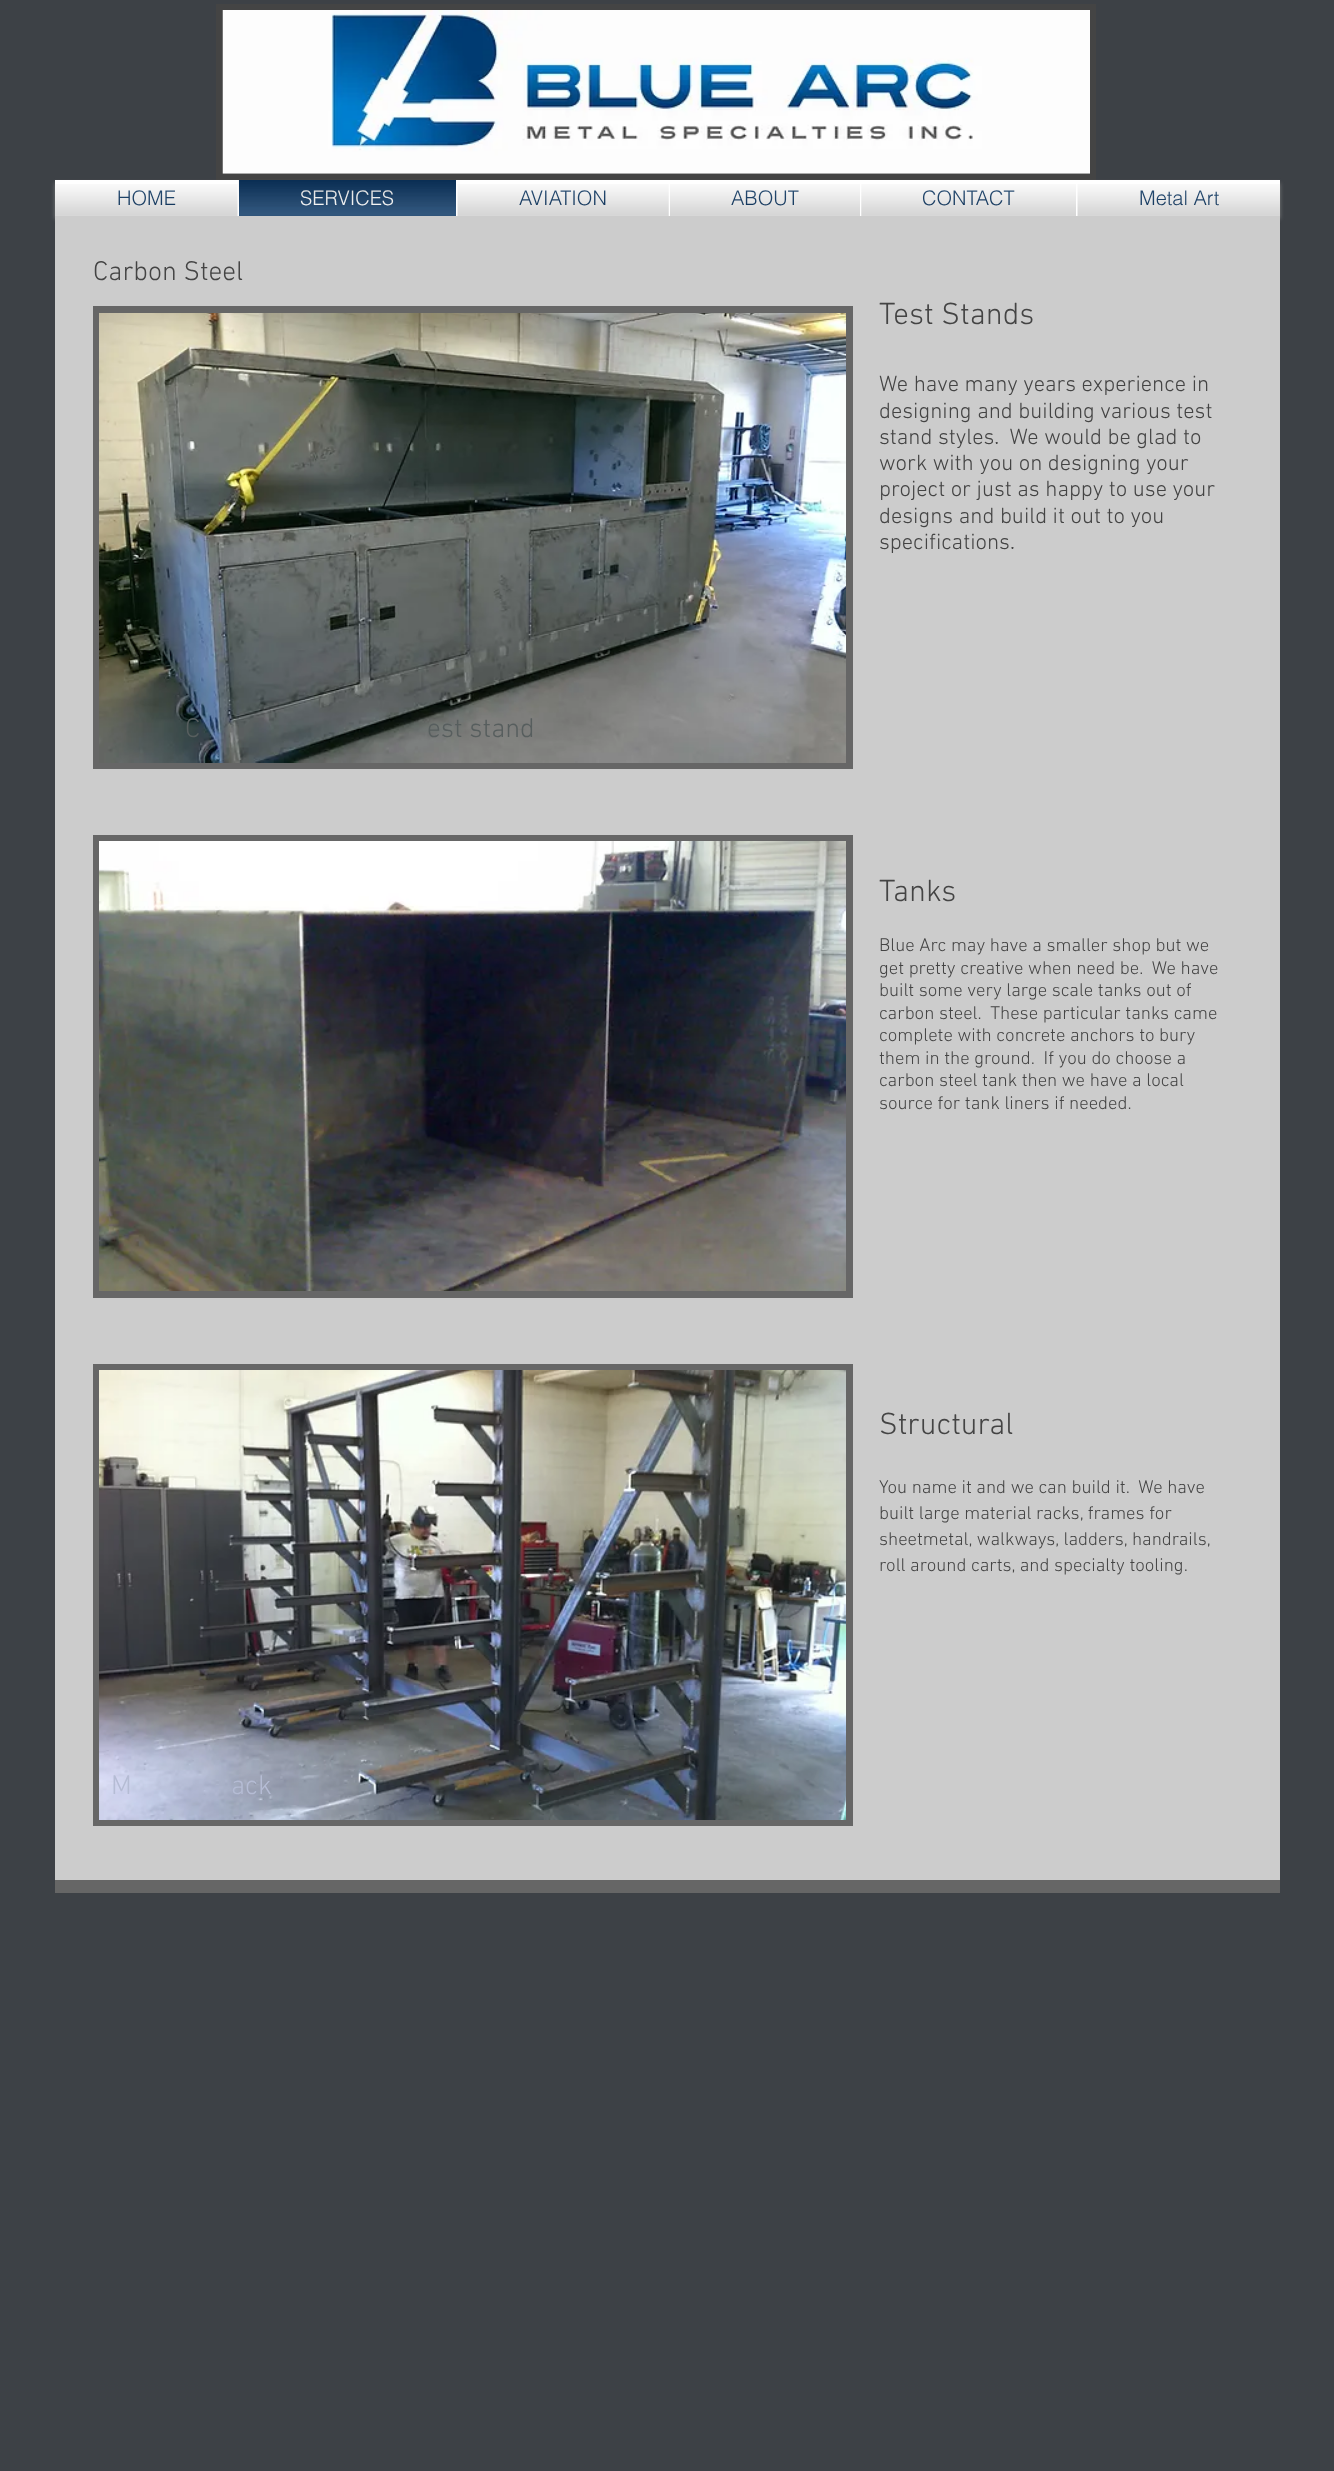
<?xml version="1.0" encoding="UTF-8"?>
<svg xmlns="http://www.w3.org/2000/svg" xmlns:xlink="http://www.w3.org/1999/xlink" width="1334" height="2471">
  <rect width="100%" height="100%" fill="#3d4146" />
  <rect x="216" y="4" width="880" height="176" fill="#444444" />
  <image x="222" y="10" width="868" height="164" xlink:href="image1.png" />
  <rect x="55" y="183" width="1225" height="36" fill="#a29e9e" fill-opacity="0.6" filter="blur(2px)" />
  <rect x="55" y="180" width="184" height="36" fill="#ffffff" />
  <rect x="239" y="180" width="217" height="36" fill="#002e5d" />
  <rect x="456" y="180" width="824" height="36" fill="#ffffff" />
  <rect x="55" y="216" width="1225" height="1664" fill="#cccccc" />
  <rect x="93" y="306" width="760" height="463" fill="#666666" />
  <image x="99" y="313" width="747" height="450" xlink:href="image14.png" />
  <rect x="93" y="835" width="760" height="463" fill="#666666" />
  <image x="99" y="841" width="747" height="450" xlink:href="image15.png" />
  <rect x="93" y="1364" width="760" height="462" fill="#666666" />
  <image x="99" y="1370" width="747" height="450" xlink:href="image16.png" />
  <rect x="55" y="1880" width="1225" height="13" fill="#666666" />
  <text x="117" y="205" style="font-family: helvetica; font-size: 20px; font-weight: 300; fill: #002e5d">HOME</text>
  <image x="118" y="190" width="57" height="16" xlink:href="image2.png" />
  <image x="55" y="184" width="183" height="32" xlink:href="image3.png" />
  <text x="300" y="205" style="font-family: helvetica; font-size: 20px; font-weight: 300; fill: #ffffff">SERVICES</text>
  <image x="238" y="180" width="218" height="27" xlink:href="image4.png" />
  <image x="239" y="180" width="217" height="36" xlink:href="image5.png" />
  <text x="519" y="205" style="font-family: helvetica; font-size: 20px; font-weight: 300; fill: #002e5d">AVIATION</text>
  <image x="519" y="190" width="87" height="16" xlink:href="image6.png" />
  <image x="457" y="184" width="212" height="32" xlink:href="image7.png" />
  <text x="731" y="205" style="font-family: helvetica; font-size: 20px; font-weight: 300; fill: #002e5d">ABOUT</text>
  <image x="731" y="190" width="68" height="16" xlink:href="image8.png" />
  <image x="670" y="184" width="190" height="32" xlink:href="image9.png" />
  <text x="922" y="205" style="font-family: helvetica; font-size: 20px; font-weight: 300; fill: #002e5d">CONTACT</text>
  <image x="923" y="190" width="92" height="16" xlink:href="image10.png" />
  <image x="861" y="184" width="215" height="32" xlink:href="image11.png" />
  <text x="1139" y="205" style="font-family: helvetica; font-size: 20px; font-weight: 300; fill: #002e5d">Metal Art</text>
  <image x="1140" y="190" width="79" height="16" xlink:href="image12.png" />
  <image x="1077" y="184" width="203" height="32" xlink:href="image13.png" />
  <text x="93" y="280" style="font-family: 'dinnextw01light'; font-size: 27.5px; font-weight: 300; fill: #444444">Carbon Steel</text>
  <text x="879" y="324" style="font-family: 'dinnextw01light'; font-size: 31.25px; font-weight: 300; fill: #444444">Test Stands</text>
  <text x="879" y="391" style="font-family: 'dinnextw01light'; font-size: 22.5px; font-weight: 300; fill: #444444">We have many years experience in</text>
  <text x="879" y="418" style="font-family: 'dinnextw01light'; font-size: 22.5px; font-weight: 300; fill: #444444">designing and building various test</text>
  <text x="879" y="444" style="font-family: 'dinnextw01light'; font-size: 22.5px; font-weight: 300; fill: #444444" xml:space="preserve">stand styles.  We would be glad to</text>
  <text x="879" y="470" style="font-family: 'dinnextw01light'; font-size: 22.5px; font-weight: 300; fill: #444444">work with you on designing your</text>
  <text x="879" y="496" style="font-family: 'dinnextw01light'; font-size: 22.5px; font-weight: 300; fill: #444444">project or just as happy to use your</text>
  <text x="879" y="523" style="font-family: 'dinnextw01light'; font-size: 22.5px; font-weight: 300; fill: #444444">designs and build it out to you</text>
  <text x="879" y="549" style="font-family: 'dinnextw01light'; font-size: 22.5px; font-weight: 300; fill: #444444">specifications.</text>
  <text x="185" y="737" style="font-family: 'dinnextw01light'; font-size: 27.5px; font-weight: 300; fill: #575e5e">C</text>
  <text x="427" y="737" style="font-family: 'dinnextw01light'; font-size: 27.5px; font-weight: 300; fill: #575e5e">est stand</text>
  <text x="879" y="901" style="font-family: 'dinnextw01light'; font-size: 31.25px; font-weight: 300; fill: #444444">Tanks</text>
  <text x="879" y="951" style="font-family: 'dinnextw01light'; font-size: 18.75px; font-weight: 300; fill: #444444">Blue Arc may have a smaller shop but we</text>
  <text x="879" y="974" style="font-family: 'dinnextw01light'; font-size: 18.75px; font-weight: 300; fill: #444444" xml:space="preserve">get pretty creative when need be.  We have</text>
  <text x="879" y="996" style="font-family: 'dinnextw01light'; font-size: 18.75px; font-weight: 300; fill: #444444">built some very large scale tanks out of</text>
  <text x="879" y="1019" style="font-family: 'dinnextw01light'; font-size: 18.75px; font-weight: 300; fill: #444444" xml:space="preserve">carbon steel.  These particular tanks came</text>
  <text x="879" y="1041" style="font-family: 'dinnextw01light'; font-size: 18.75px; font-weight: 300; fill: #444444">complete with concrete anchors to bury</text>
  <text x="879" y="1064" style="font-family: 'dinnextw01light'; font-size: 18.75px; font-weight: 300; fill: #444444" xml:space="preserve">them in the ground.  If you do choose a</text>
  <text x="879" y="1086" style="font-family: 'dinnextw01light'; font-size: 18.75px; font-weight: 300; fill: #444444">carbon steel tank then we have a local</text>
  <text x="879" y="1109" style="font-family: 'dinnextw01light'; font-size: 18.75px; font-weight: 300; fill: #444444">source for tank liners if needed.</text>
  <text x="879" y="1434" style="font-family: 'dinnextw01light'; font-size: 31.25px; font-weight: 300; fill: #444444">Structural</text>
  <text x="879" y="1493" style="font-family: 'dinnextw01light'; font-size: 18.75px; font-weight: 300; fill: #444444" xml:space="preserve">You name it and we can build it.  We have</text>
  <text x="879" y="1519" style="font-family: 'dinnextw01light'; font-size: 18.75px; font-weight: 300; fill: #444444">built large material racks, frames for</text>
  <text x="879" y="1545" style="font-family: 'dinnextw01light'; font-size: 18.75px; font-weight: 300; fill: #444444">sheetmetal, walkways, ladders, handrails,</text>
  <text x="879" y="1571" style="font-family: 'dinnextw01light'; font-size: 18.75px; font-weight: 300; fill: #444444">roll around carts, and specialty tooling.</text>
  <text x="111" y="1794" style="font-family: 'dinnextw01light'; font-size: 27.5px; font-weight: 300; fill: #b5bcd4">M</text>
  <text x="231" y="1794" style="font-family: 'dinnextw01light'; font-size: 27.5px; font-weight: 300; fill: #b5bcd4">ack</text>
</svg>
